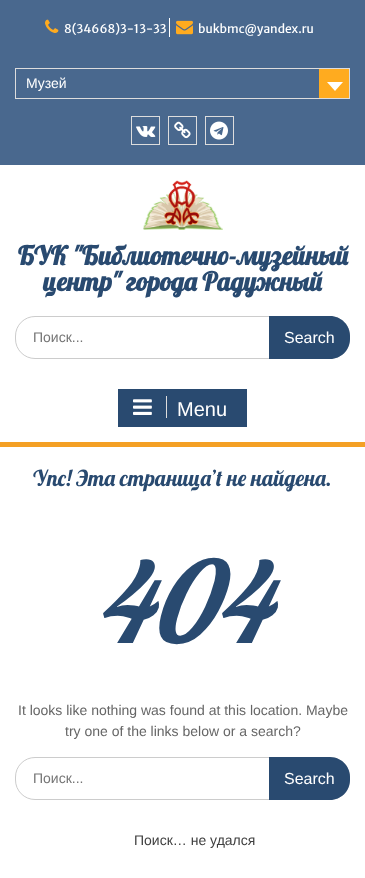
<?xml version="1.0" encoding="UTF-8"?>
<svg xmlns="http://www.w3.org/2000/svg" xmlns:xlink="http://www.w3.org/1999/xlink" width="365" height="878">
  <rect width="100%" height="100%" fill="#ffffff" />
  <rect width="365" height="165" fill="#49688e" />
  <image x="45" y="19" width="14" height="14" xlink:href="image1.png" />
  <rect x="169" y="18" width="1" height="19" fill="#ffffff" />
  <image x="176" y="20" width="17" height="15" xlink:href="image2.png" />
  <rect x="15.5" y="68.5" width="334" height="30" fill="none" stroke="#dddddd" />
  <rect x="319" y="69" width="30" height="29" fill="#ffab1f" />
  <path d="M 327 82 h 16 l -8 9 z" fill="#ffffff" />
  <rect x="131.5" y="116.5" width="28" height="28" fill="none" stroke="#dddddd" />
  <image x="136" y="126" width="20" height="11" xlink:href="image3.png" />
  <rect x="168.5" y="116.5" width="28" height="28" fill="none" stroke="#dddddd" />
  <image x="174" y="121" width="17" height="18" xlink:href="image4.png" />
  <rect x="205.5" y="116.5" width="28" height="28" fill="none" stroke="#dddddd" />
  <image x="210" y="121" width="18" height="19" xlink:href="image5.png" />
  <image x="143" y="180" width="80" height="50" xlink:href="image6.png" />
  <rect x="15.5" y="316.5" width="334" height="42" rx="19.5" fill="none" stroke="#cccccc" />
  <path d="M 269 316 h 61 c 11 0 20 9 20 20 v 3 c 0 11 -9 20 -20 20 h -61 z" fill="#294a70" />
  <rect y="442" width="365" height="5" fill="#f4a024" />
  <rect x="118" y="389" width="129" height="38" fill="#294a70" />
  <rect x="166" y="396" width="1" height="22" fill="#dddddd" />
  <image x="133" y="399" width="19" height="16" xlink:href="image7.png" />
  <rect x="15.5" y="757.5" width="334" height="42" rx="19.5" fill="none" stroke="#cccccc" />
  <path d="M 269 757 h 61 c 11 0 20 9 20 20 v 3 c 0 11 -9 20 -20 20 h -61 z" fill="#294a70" />
  <text x="64" y="33" style="font-family: Merriweather Sans; font-size: 12px; fill: #ffffff">8(34668)3-13-33</text>
  <text x="198" y="33" style="font-family: Merriweather Sans; font-size: 12px; fill: #ffffff">bukbmc@yandex.ru</text>
  <text x="26" y="88" style="font-family: Liberation Sans; font-size: 14px; fill: #ffffff">Музей</text>
  <text x="18" y="265" style="font-family: Lobster; font-size: 26px; font-weight: bold; fill: #294a70">БУК "Библиотечно-музейный</text>
  <text x="43" y="291" style="font-family: Lobster; font-size: 26px; font-weight: bold; fill: #294a70">центр" города Радужный</text>
  <text x="33" y="342" style="font-family: Liberation Sans; font-size: 14px; fill: #757575">Поиск...</text>
  <text x="284" y="343" style="font-family: Liberation Sans; font-size: 16px; fill: #ffffff">Search</text>
  <text x="177" y="416" style="font-family: Liberation Sans; font-size: 20px; fill: #ffffff">Menu</text>
  <text x="33" y="486" style="font-family: Lobster; font-size: 22px; fill: #294a70">Упс! Эта страница’t не найдена.</text>
  <text x="96" y="643" style="font-family: Lobster; font-size: 113px; font-style: italic; fill: #294a70">404</text>
  <text x="18" y="715" style="font-family: Liberation Sans; font-size: 14px; fill: #666666">It looks like nothing was found at this location. Maybe</text>
  <text x="65" y="736" style="font-family: Liberation Sans; font-size: 14px; fill: #666666">try one of the links below or a search?</text>
  <text x="33" y="783" style="font-family: Liberation Sans; font-size: 14px; fill: #757575">Поиск...</text>
  <text x="284" y="784" style="font-family: Liberation Sans; font-size: 16px; fill: #ffffff">Search</text>
  <text x="134" y="845" style="font-family: Liberation Sans; font-size: 14px; fill: #404040">Поиск… не удался</text>
</svg>
